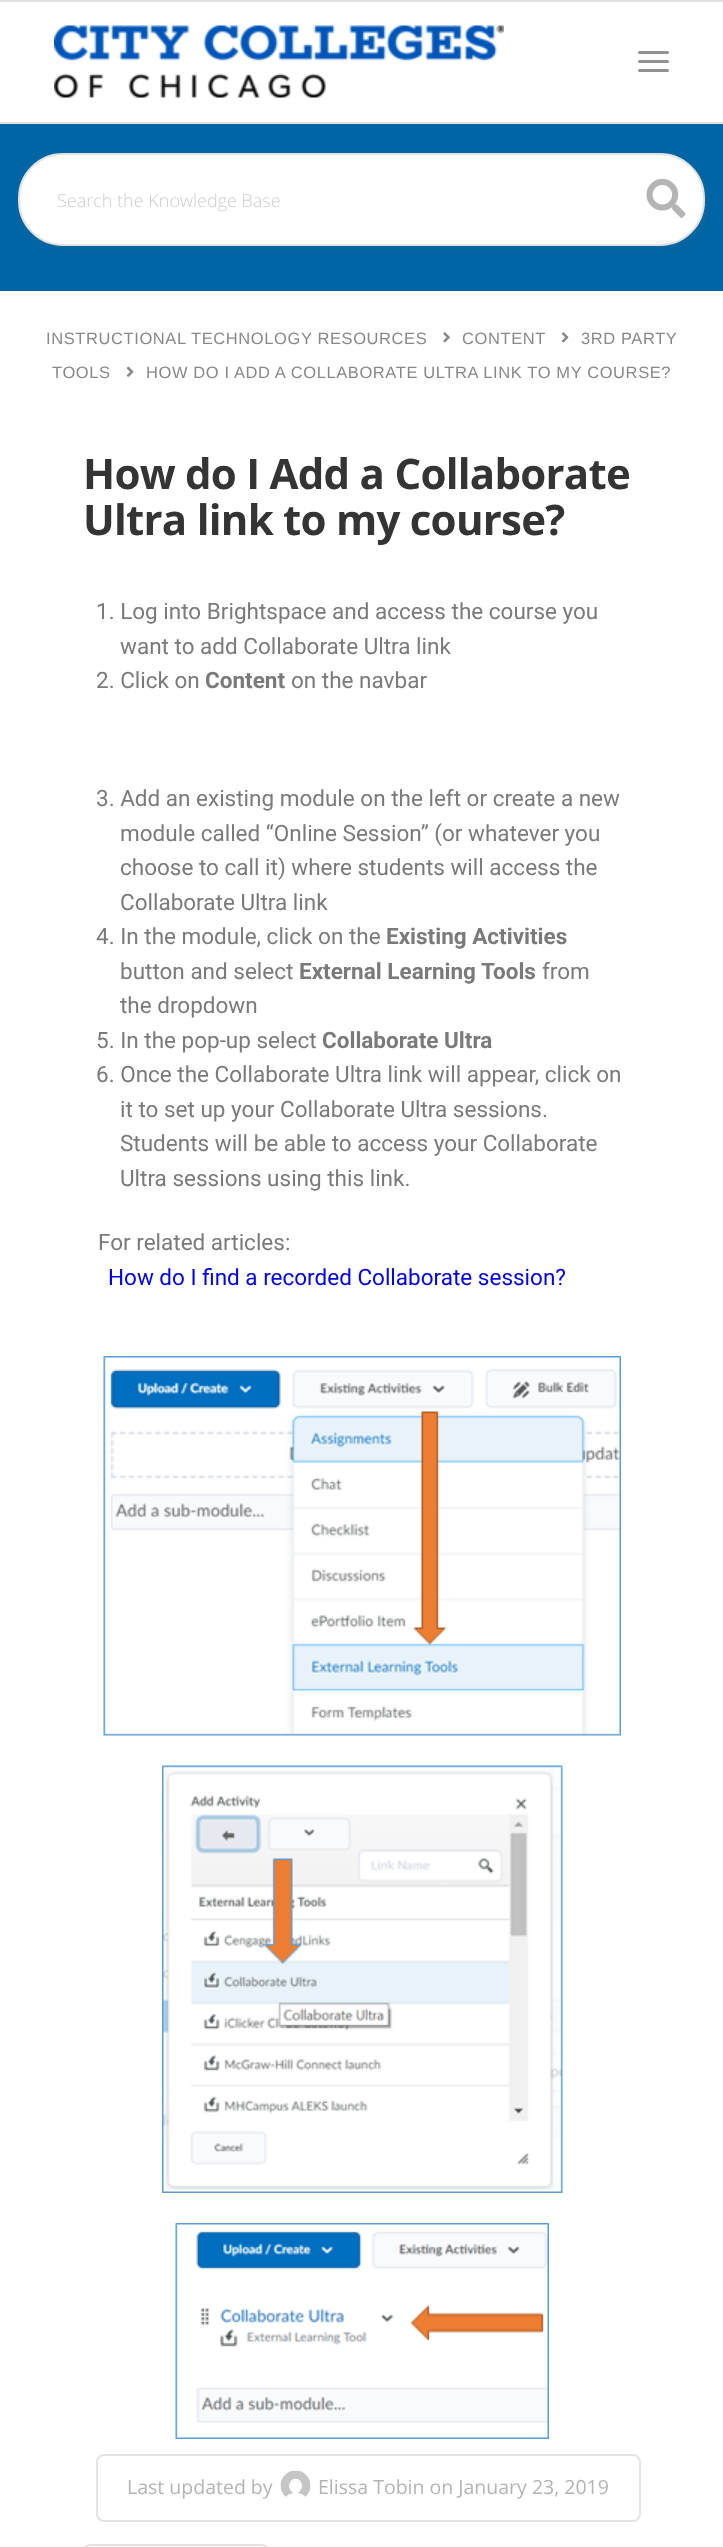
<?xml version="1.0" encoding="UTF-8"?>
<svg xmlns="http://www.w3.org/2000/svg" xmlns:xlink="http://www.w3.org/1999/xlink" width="723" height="2547">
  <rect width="100%" height="100%" fill="#ffffff" />
  <rect width="723" height="2" fill="#e1e1e1" />
  <rect y="122" width="723" height="2" fill="#e1e1e1" />
  <image x="54" y="25" width="450" height="73" xlink:href="image1.png" />
  <rect x="638" y="60" width="31" height="3" rx="1.5" fill="#919191" />
  <rect x="638" y="51" width="31" height="3" rx="1.5" fill="#919191" />
  <rect x="638" y="69" width="31" height="3" rx="1.5" fill="#919191" />
  <rect y="124" width="723" height="167" fill="#0065a4" />
  <rect x="21" y="156" width="687" height="93" rx="45" fill="#787878" fill-opacity="0.1" filter="blur(2px)" />
  <rect x="19" y="154" width="685" height="91" rx="44" fill="#ffffff" stroke="#e1e1e1" stroke-width="2" />
  <image x="646" y="178" width="40" height="40" xlink:href="image2.png" />
  <image x="443" y="332" width="7" height="11" xlink:href="image3.png" />
  <image x="561" y="332" width="8" height="11" xlink:href="image4.png" />
  <image x="126" y="366" width="8" height="11" xlink:href="image5.png" />
  <image x="103" y="1356" width="518" height="380" xlink:href="image6.png" />
  <image x="162" y="1765" width="401" height="428" xlink:href="image7.png" />
  <image x="175" y="2223" width="374" height="216" xlink:href="image8.png" />
  <rect x="97" y="2455" width="543" height="66" rx="7" fill="none" stroke="#e4e4e4" stroke-width="2" />
  <image x="280" y="2470" width="31" height="27" xlink:href="image9.png" />
  <rect x="84" y="2545" width="184" height="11" rx="7" fill="none" stroke="#e4e4e4" stroke-width="2" />
  <text x="57" y="207" style="font-family: Open Sans; font-size: 18px; font-weight: 300; fill: #cdcdcd">Search the Knowledge Base</text>
  <text x="46" y="344" style="font-family: Liberation Sans; font-size: 16.5px; letter-spacing: 0.6px; fill: #888888">INSTRUCTIONAL TECHNOLOGY RESOURCES</text>
  <text x="462" y="344" style="font-family: Liberation Sans; font-size: 16.5px; letter-spacing: 0.6px; fill: #888888">CONTENT</text>
  <text x="581" y="344" style="font-family: Liberation Sans; font-size: 16.5px; letter-spacing: 0.6px; fill: #888888">3RD PARTY</text>
  <text x="52" y="378" style="font-family: Liberation Sans; font-size: 16.5px; letter-spacing: 0.6px; fill: #888888">TOOLS</text>
  <text x="146" y="378" style="font-family: Liberation Sans; font-size: 16.5px; letter-spacing: 0.6px; fill: #888888">HOW DO I ADD A COLLABORATE ULTRA LINK TO MY COURSE?</text>
  <text x="83" y="489" style="font-family: Open Sans; font-size: 42px; font-weight: bold; letter-spacing: -0.75px; fill: #343434">How do I Add a Collaborate</text>
  <text x="83" y="535" style="font-family: Open Sans; font-size: 42px; font-weight: bold; letter-spacing: -0.75px; fill: #343434">Ultra link to my course?</text>
  <text x="96" y="619" style="font-family: Roboto; font-size: 22.5px; fill: #7a7a7a">1. Log into Brightspace and access the course you</text>
  <text x="120" y="654" style="font-family: Roboto; font-size: 22.5px; fill: #7a7a7a">want to add Collaborate Ultra link</text>
  <text x="96" y="688" style="font-family: Roboto; font-size: 22.5px; fill: #7a7a7a">2. Click on</text>
  <text x="205" y="688" style="font-family: Roboto; font-size: 22.5px; font-weight: bold; fill: #7a7a7a">Content</text>
  <text x="291" y="688" style="font-family: Roboto; font-size: 22.5px; fill: #7a7a7a">on the navbar</text>
  <text x="96" y="806" style="font-family: Roboto; font-size: 22.5px; fill: #7a7a7a">3. Add an existing module on the left or create a new</text>
  <text x="120" y="841" style="font-family: Roboto; font-size: 22.5px; fill: #7a7a7a">module called “Online Session” (or whatever you</text>
  <text x="120" y="875" style="font-family: Roboto; font-size: 22.5px; fill: #7a7a7a">choose to call it) where students will access the</text>
  <text x="120" y="910" style="font-family: Roboto; font-size: 22.5px; fill: #7a7a7a">Collaborate Ultra link</text>
  <text x="96" y="944" style="font-family: Roboto; font-size: 22.5px; fill: #7a7a7a">4. In the module, click on the</text>
  <text x="386" y="944" style="font-family: Roboto; font-size: 22.5px; font-weight: bold; fill: #7a7a7a">Existing Activities</text>
  <text x="120" y="979" style="font-family: Roboto; font-size: 22.5px; fill: #7a7a7a">button and select</text>
  <text x="299" y="979" style="font-family: Roboto; font-size: 22.5px; font-weight: bold; fill: #7a7a7a">External Learning Tools</text>
  <text x="542" y="979" style="font-family: Roboto; font-size: 22.5px; fill: #7a7a7a">from</text>
  <text x="120" y="1013" style="font-family: Roboto; font-size: 22.5px; fill: #7a7a7a">the dropdown</text>
  <text x="96" y="1048" style="font-family: Roboto; font-size: 22.5px; fill: #7a7a7a">5. In the pop-up select</text>
  <text x="322" y="1048" style="font-family: Roboto; font-size: 22.5px; font-weight: bold; fill: #7a7a7a">Collaborate Ultra</text>
  <text x="96" y="1082" style="font-family: Roboto; font-size: 22.5px; fill: #7a7a7a">6. Once the Collaborate Ultra link will appear, click on</text>
  <text x="120" y="1117" style="font-family: Roboto; font-size: 22.5px; fill: #7a7a7a">it to set up your Collaborate Ultra sessions.</text>
  <text x="120" y="1151" style="font-family: Roboto; font-size: 22.5px; fill: #7a7a7a">Students will be able to access your Collaborate</text>
  <text x="120" y="1186" style="font-family: Roboto; font-size: 22.5px; fill: #7a7a7a">Ultra sessions using this link.</text>
  <text x="98" y="1250" style="font-family: Roboto; font-size: 22.5px; fill: #7a7a7a">For related articles:</text>
  <text x="108" y="1285" style="font-family: Roboto; font-size: 22.5px; fill: #0000ee">How do I find a recorded Collaborate session?</text>
  <text x="127" y="2494" style="font-family: Open Sans; font-size: 19.5px; fill: #b4b4b4">Last updated by</text>
  <text x="318" y="2494" style="font-family: Open Sans; font-size: 19.5px; fill: #b4b4b4">Elissa Tobin on January 23, 2019</text>
</svg>
